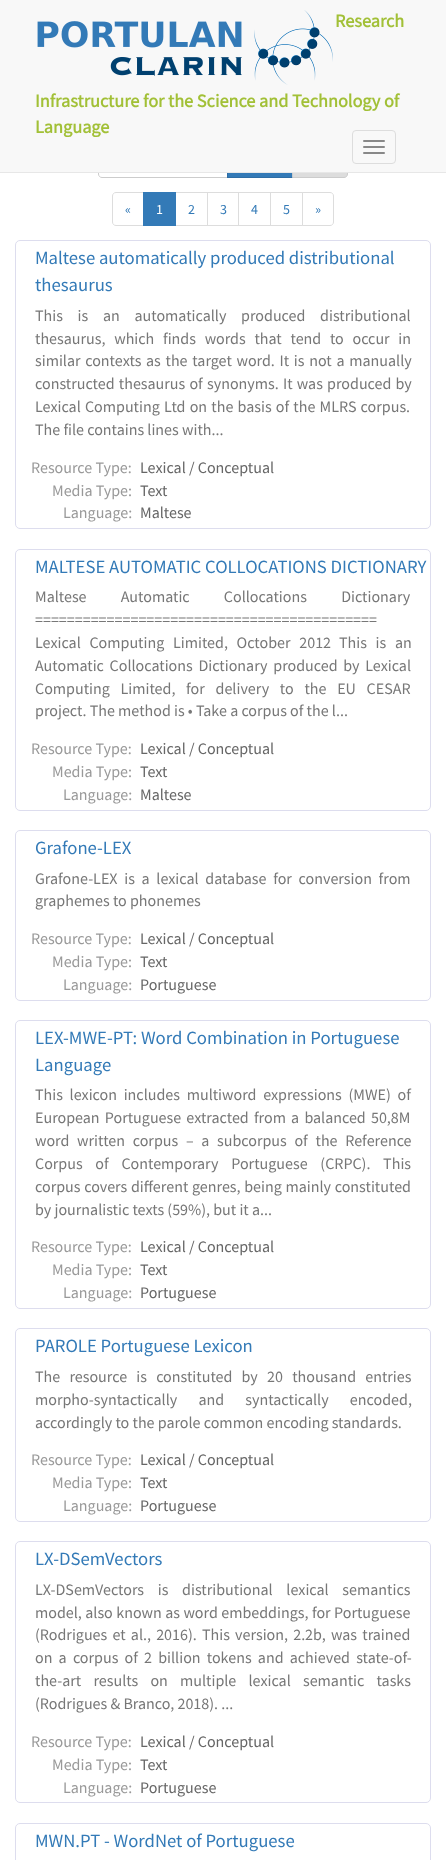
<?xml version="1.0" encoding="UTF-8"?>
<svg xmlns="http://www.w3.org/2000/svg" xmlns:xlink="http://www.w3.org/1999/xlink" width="446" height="1860">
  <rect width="100%" height="100%" fill="#ffffff" />
  <path d="M 102 144.5 h 125.5 v 33 h -125.5 c -2 0 -3.5 -1.5 -3.5 -3.5 v -26 c 0 -2 1.5 -3.5 3.5 -3.5 z" fill="none" stroke="#cccccc" />
  <rect x="228" y="173" width="64" height="4" fill="#337ab7" />
  <rect x="227.5" y="144.5" width="65" height="33" fill="none" stroke="#2e6da4" />
  <path d="M 292.5 144.5 h 51.5 c 2 0 3.5 1.5 3.5 3.5 v 26 c 0 2 -1.5 3.5 -3.5 3.5 h -51.5 z" fill="#dddddd" stroke="#cccccc" />
  <rect width="446" height="172" fill="#f8f8f8" />
  <rect y="172" width="446" height="1" fill="#e7e7e7" />
  <image x="37" y="10" width="296" height="75" xlink:href="image1.png" />
  <rect x="352.5" y="130.5" width="43" height="33" rx="3.5" fill="none" stroke="#dddddd" />
  <rect x="363" y="140" width="22" height="2" rx="1" fill="#888888" />
  <rect x="363" y="146" width="22" height="2" rx="1" fill="#888888" />
  <rect x="363" y="152" width="22" height="2" rx="1" fill="#888888" />
  <path d="M 116 192.5 h 27.5 v 33 h -27.5 c -2 0 -3.5 -1.5 -3.5 -3.5 v -26 c 0 -2 1.5 -3.5 3.5 -3.5 z" fill="none" stroke="#dddddd" />
  <rect x="175.5" y="192.5" width="32" height="33" fill="none" stroke="#dddddd" />
  <rect x="143" y="192" width="33" height="34" fill="#337ab7" />
  <rect x="207.5" y="192.5" width="31" height="33" fill="none" stroke="#dddddd" />
  <rect x="238.5" y="192.5" width="32" height="33" fill="none" stroke="#dddddd" />
  <rect x="270.5" y="192.5" width="32" height="33" fill="none" stroke="#dddddd" />
  <path d="M 302.5 192.5 h 27.5 c 2 0 3.5 1.5 3.5 3.5 v 26 c 0 2 -1.5 3.5 -3.5 3.5 h -27.5 z" fill="#ffffff" stroke="#dddddd" />
  <rect x="15.5" y="240.5" width="415" height="288" rx="4.5" fill="none" stroke="#ddddee" />
  <rect x="15.5" y="549.5" width="415" height="261" rx="4.5" fill="none" stroke="#ddddee" />
  <rect x="15.5" y="830.5" width="415" height="170" rx="4.5" fill="none" stroke="#ddddee" />
  <rect x="15.5" y="1020.5" width="415" height="288" rx="4.5" fill="none" stroke="#ddddee" />
  <rect x="15.5" y="1328.5" width="415" height="193" rx="4.5" fill="none" stroke="#ddddee" />
  <rect x="15.5" y="1541.5" width="415" height="261" rx="4.5" fill="none" stroke="#ddddee" />
  <rect x="15.5" y="1823.5" width="415" height="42" rx="4.5" fill="none" stroke="#ddddee" />
  <text x="335" y="27" style="font-family: Source Sans Pro; font-size: 18.25px; font-weight: bold; fill: #a2c037">Research</text>
  <text x="35" y="107" style="font-family: Source Sans Pro; font-size: 18.25px; font-weight: bold; fill: #a2c037">Infrastructure for the Science and Technology of</text>
  <text x="35" y="133" style="font-family: Source Sans Pro; font-size: 18.25px; font-weight: bold; fill: #a2c037">Language</text>
  <text x="125" y="214" style="font-family: Source Sans Pro; font-size: 14px; fill: #337ab7">«</text>
  <text x="156" y="214" style="font-family: Source Sans Pro; font-size: 14px; fill: #ffffff">1</text>
  <text x="188" y="214" style="font-family: Source Sans Pro; font-size: 14px; fill: #337ab7">2</text>
  <text x="220" y="214" style="font-family: Source Sans Pro; font-size: 14px; fill: #337ab7">3</text>
  <text x="251" y="214" style="font-family: Source Sans Pro; font-size: 14px; fill: #337ab7">4</text>
  <text x="283" y="214" style="font-family: Source Sans Pro; font-size: 14px; fill: #337ab7">5</text>
  <text x="315" y="214" style="font-family: Source Sans Pro; font-size: 14px; fill: #337ab7">»</text>
  <text x="35" y="264" style="font-family: Source Sans Pro; font-size: 18.7px; fill: #337ab7">Maltese automatically produced distributional</text>
  <text x="35" y="291" style="font-family: Source Sans Pro; font-size: 18.7px; fill: #337ab7">thesaurus</text>
  <text x="35" y="321" word-spacing="11.5" style="font-family: Source Sans Pro; font-size: 16px; fill: #777777">This is an automatically produced distributional</text>
  <text x="35" y="344" word-spacing="5.5" style="font-family: Source Sans Pro; font-size: 16px; fill: #777777">thesaurus, which finds words that tend to occur in</text>
  <text x="35" y="366" word-spacing="1.5" style="font-family: Source Sans Pro; font-size: 16px; fill: #777777">similar contexts as the target word. It is not a manually</text>
  <text x="35" y="389" word-spacing="1" style="font-family: Source Sans Pro; font-size: 16px; fill: #777777">constructed thesaurus of synonyms. It was produced by</text>
  <text x="35" y="412" word-spacing="1" style="font-family: Source Sans Pro; font-size: 16px; fill: #777777">Lexical Computing Ltd on the basis of the MLRS corpus.</text>
  <text x="35" y="435" style="font-family: Source Sans Pro; font-size: 16px; fill: #777777">The file contains lines with...</text>
  <text x="31" y="473" style="font-family: Source Sans Pro; font-size: 16px; fill: #999999">Resource Type:</text>
  <text x="140" y="473" style="font-family: Source Sans Pro; font-size: 16px; fill: #666666">Lexical / Conceptual</text>
  <text x="52" y="496" style="font-family: Source Sans Pro; font-size: 16px; fill: #999999">Media Type:</text>
  <text x="140" y="496" style="font-family: Source Sans Pro; font-size: 16px; fill: #666666">Text</text>
  <text x="63" y="518" style="font-family: Source Sans Pro; font-size: 16px; fill: #999999">Language:</text>
  <text x="140" y="518" style="font-family: Source Sans Pro; font-size: 16px; fill: #666666">Maltese</text>
  <text x="35" y="573" style="font-family: Source Sans Pro; font-size: 18.7px; fill: #337ab7">MALTESE AUTOMATIC COLLOCATIONS DICTIONARY</text>
  <text x="35" y="602" word-spacing="31" style="font-family: Source Sans Pro; font-size: 16px; fill: #777777">Maltese Automatic Collocations Dictionary</text>
  <text x="35" y="625" style="font-family: Source Sans Pro; font-size: 16px; fill: #777777">===========================================</text>
  <text x="35" y="648" word-spacing="5.5" style="font-family: Source Sans Pro; font-size: 16px; fill: #777777">Lexical Computing Limited, October 2012</text>
  <text x="339" y="648" word-spacing="5.5" style="font-family: Source Sans Pro; font-size: 16px; fill: #777777">This is an</text>
  <text x="35" y="671" word-spacing="2.5" style="font-family: Source Sans Pro; font-size: 16px; fill: #777777">Automatic Collocations Dictionary produced by Lexical</text>
  <text x="35" y="694" word-spacing="7.5" style="font-family: Source Sans Pro; font-size: 16px; fill: #777777">Computing Limited, for delivery to the EU CESAR</text>
  <text x="35" y="716" style="font-family: Source Sans Pro; font-size: 16px; fill: #777777">project. The method is • Take a corpus of the l...</text>
  <text x="31" y="754" style="font-family: Source Sans Pro; font-size: 16px; fill: #999999">Resource Type:</text>
  <text x="140" y="754" style="font-family: Source Sans Pro; font-size: 16px; fill: #666666">Lexical / Conceptual</text>
  <text x="52" y="777" style="font-family: Source Sans Pro; font-size: 16px; fill: #999999">Media Type:</text>
  <text x="140" y="777" style="font-family: Source Sans Pro; font-size: 16px; fill: #666666">Text</text>
  <text x="63" y="800" style="font-family: Source Sans Pro; font-size: 16px; fill: #999999">Language:</text>
  <text x="140" y="800" style="font-family: Source Sans Pro; font-size: 16px; fill: #666666">Maltese</text>
  <text x="35" y="854" style="font-family: Source Sans Pro; font-size: 18.7px; fill: #337ab7">Grafone-LEX</text>
  <text x="35" y="884" word-spacing="3.5" style="font-family: Source Sans Pro; font-size: 16px; fill: #777777">Grafone-LEX is a lexical database for conversion from</text>
  <text x="35" y="906" style="font-family: Source Sans Pro; font-size: 16px; fill: #777777">graphemes to phonemes</text>
  <text x="31" y="944" style="font-family: Source Sans Pro; font-size: 16px; fill: #999999">Resource Type:</text>
  <text x="140" y="944" style="font-family: Source Sans Pro; font-size: 16px; fill: #666666">Lexical / Conceptual</text>
  <text x="52" y="967" style="font-family: Source Sans Pro; font-size: 16px; fill: #999999">Media Type:</text>
  <text x="140" y="967" style="font-family: Source Sans Pro; font-size: 16px; fill: #666666">Text</text>
  <text x="63" y="990" style="font-family: Source Sans Pro; font-size: 16px; fill: #999999">Language:</text>
  <text x="140" y="990" style="font-family: Source Sans Pro; font-size: 16px; fill: #666666">Portuguese</text>
  <text x="35" y="1044" style="font-family: Source Sans Pro; font-size: 18.7px; fill: #337ab7">LEX-MWE-PT: Word Combination in Portuguese</text>
  <text x="35" y="1071" style="font-family: Source Sans Pro; font-size: 18.7px; fill: #337ab7">Language</text>
  <text x="35" y="1100" word-spacing="3.5" style="font-family: Source Sans Pro; font-size: 16px; fill: #777777">This lexicon includes multiword expressions (MWE) of</text>
  <text x="35" y="1123" word-spacing="2" style="font-family: Source Sans Pro; font-size: 16px; fill: #777777">European Portuguese extracted from a balanced 50,8M</text>
  <text x="35" y="1146" word-spacing="4.5" style="font-family: Source Sans Pro; font-size: 16px; fill: #777777">word written corpus – a subcorpus of the Reference</text>
  <text x="35" y="1169" word-spacing="9.5" style="font-family: Source Sans Pro; font-size: 16px; fill: #777777">Corpus of Contemporary Portuguese (CRPC). This</text>
  <text x="35" y="1192" word-spacing="0.5" style="font-family: Source Sans Pro; font-size: 16px; fill: #777777">corpus covers different genres, being mainly constituted</text>
  <text x="35" y="1215" style="font-family: Source Sans Pro; font-size: 16px; fill: #777777">by journalistic texts (59%), but it a...</text>
  <text x="31" y="1252" style="font-family: Source Sans Pro; font-size: 16px; fill: #999999">Resource Type:</text>
  <text x="140" y="1252" style="font-family: Source Sans Pro; font-size: 16px; fill: #666666">Lexical / Conceptual</text>
  <text x="52" y="1275" style="font-family: Source Sans Pro; font-size: 16px; fill: #999999">Media Type:</text>
  <text x="140" y="1275" style="font-family: Source Sans Pro; font-size: 16px; fill: #666666">Text</text>
  <text x="63" y="1298" style="font-family: Source Sans Pro; font-size: 16px; fill: #999999">Language:</text>
  <text x="140" y="1298" style="font-family: Source Sans Pro; font-size: 16px; fill: #666666">Portuguese</text>
  <text x="35" y="1352" style="font-family: Source Sans Pro; font-size: 18.7px; fill: #337ab7">PAROLE Portuguese Lexicon</text>
  <text x="35" y="1382" word-spacing="6" style="font-family: Source Sans Pro; font-size: 16px; fill: #777777">The resource is constituted by 20 thousand entries</text>
  <text x="35" y="1405" word-spacing="18" style="font-family: Source Sans Pro; font-size: 16px; fill: #777777">morpho-syntactically and syntactically encoded,</text>
  <text x="35" y="1428" style="font-family: Source Sans Pro; font-size: 16px; fill: #777777">accordingly to the parole common encoding standards.</text>
  <text x="31" y="1465" style="font-family: Source Sans Pro; font-size: 16px; fill: #999999">Resource Type:</text>
  <text x="140" y="1465" style="font-family: Source Sans Pro; font-size: 16px; fill: #666666">Lexical / Conceptual</text>
  <text x="52" y="1488" style="font-family: Source Sans Pro; font-size: 16px; fill: #999999">Media Type:</text>
  <text x="140" y="1488" style="font-family: Source Sans Pro; font-size: 16px; fill: #666666">Text</text>
  <text x="63" y="1511" style="font-family: Source Sans Pro; font-size: 16px; fill: #999999">Language:</text>
  <text x="140" y="1511" style="font-family: Source Sans Pro; font-size: 16px; fill: #666666">Portuguese</text>
  <text x="35" y="1565" style="font-family: Source Sans Pro; font-size: 18.7px; fill: #337ab7">LX-DSemVectors</text>
  <text x="35" y="1595" word-spacing="10.5" style="font-family: Source Sans Pro; font-size: 16px; fill: #777777">LX-DSemVectors is distributional lexical semantics</text>
  <text x="35" y="1618" word-spacing="0.25" style="font-family: Source Sans Pro; font-size: 16px; fill: #777777">model, also known as word embeddings, for Portuguese</text>
  <text x="35" y="1640" word-spacing="2" style="font-family: Source Sans Pro; font-size: 16px; fill: #777777">(Rodrigues et al., 2016). This version, 2.2b, was trained</text>
  <text x="35" y="1663" word-spacing="3" style="font-family: Source Sans Pro; font-size: 16px; fill: #777777">on a corpus of 2 billion tokens and achieved state-of-</text>
  <text x="35" y="1686" word-spacing="9" style="font-family: Source Sans Pro; font-size: 16px; fill: #777777">the-art results on multiple lexical semantic tasks</text>
  <text x="35" y="1709" style="font-family: Source Sans Pro; font-size: 16px; fill: #777777">(Rodrigues &amp; Branco, 2018). ...</text>
  <text x="31" y="1747" style="font-family: Source Sans Pro; font-size: 16px; fill: #999999">Resource Type:</text>
  <text x="140" y="1747" style="font-family: Source Sans Pro; font-size: 16px; fill: #666666">Lexical / Conceptual</text>
  <text x="52" y="1770" style="font-family: Source Sans Pro; font-size: 16px; fill: #999999">Media Type:</text>
  <text x="140" y="1770" style="font-family: Source Sans Pro; font-size: 16px; fill: #666666">Text</text>
  <text x="63" y="1793" style="font-family: Source Sans Pro; font-size: 16px; fill: #999999">Language:</text>
  <text x="140" y="1793" style="font-family: Source Sans Pro; font-size: 16px; fill: #666666">Portuguese</text>
  <text x="35" y="1847" style="font-family: Source Sans Pro; font-size: 18.7px; fill: #337ab7">MWN.PT - WordNet of Portuguese</text>
</svg>
